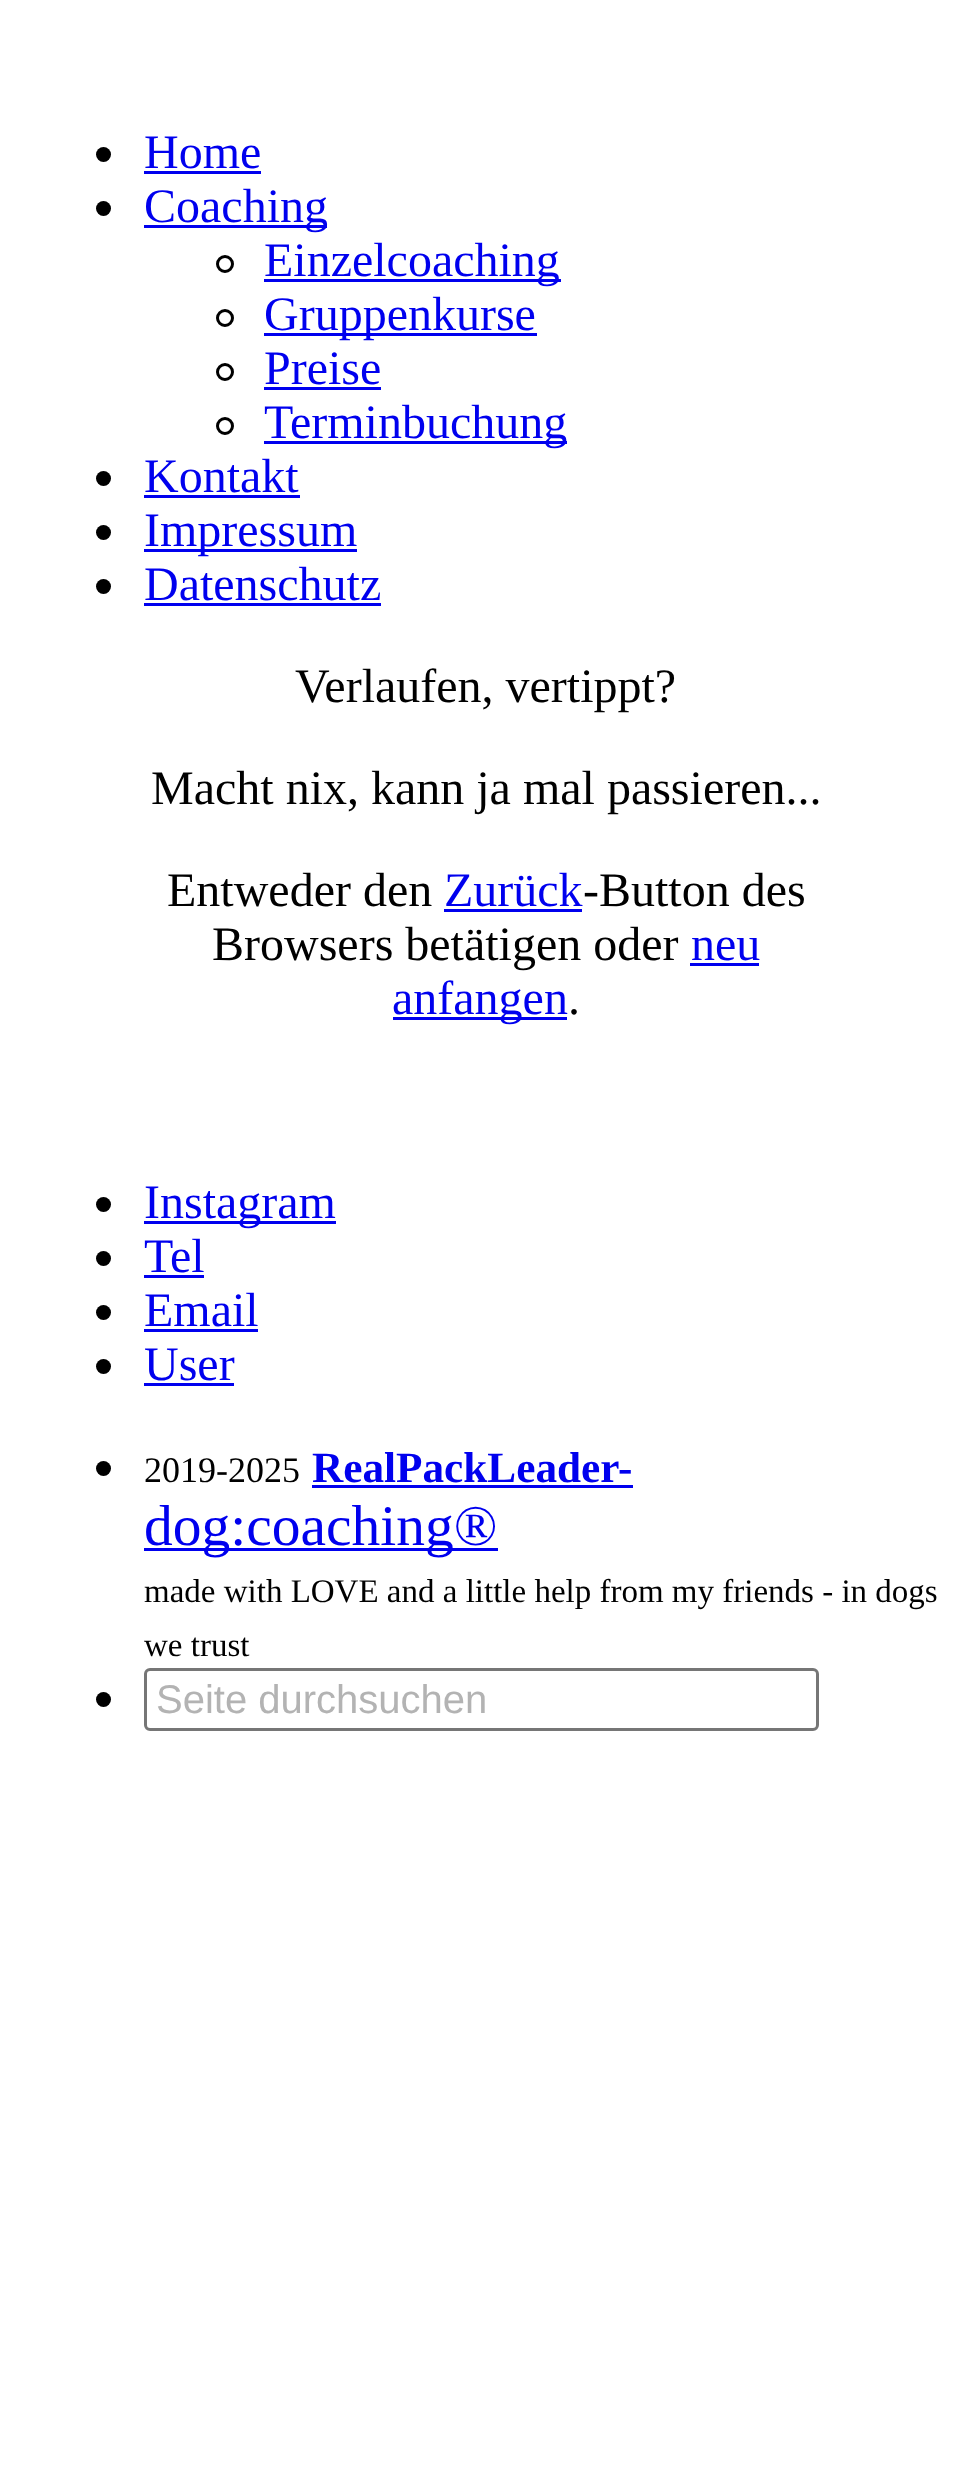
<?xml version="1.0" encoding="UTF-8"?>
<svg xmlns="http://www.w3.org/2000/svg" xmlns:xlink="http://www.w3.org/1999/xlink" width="970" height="2489">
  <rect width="100%" height="100%" fill="#ffffff" />
  <circle cx="103.5" cy="154.5" r="7.5" fill="#000000" />
  <rect x="144" y="171" width="117" height="3" fill="#0000ee" />
  <circle cx="103.5" cy="208.5" r="7.5" fill="#000000" />
  <rect x="144" y="225" width="183" height="3" fill="#0000ee" />
  <circle cx="225" cy="264" r="7.5" fill="none" stroke="#000000" stroke-width="3" />
  <rect x="264" y="279" width="297" height="3" fill="#0000ee" />
  <circle cx="225" cy="318" r="7.5" fill="none" stroke="#000000" stroke-width="3" />
  <rect x="264" y="333" width="273" height="3" fill="#0000ee" />
  <circle cx="225" cy="372" r="7.5" fill="none" stroke="#000000" stroke-width="3" />
  <rect x="264" y="387" width="117" height="3" fill="#0000ee" />
  <circle cx="225" cy="426" r="7.5" fill="none" stroke="#000000" stroke-width="3" />
  <rect x="264" y="441" width="303" height="3" fill="#0000ee" />
  <circle cx="103.5" cy="478.5" r="7.5" fill="#000000" />
  <rect x="144" y="495" width="156" height="3" fill="#0000ee" />
  <circle cx="103.5" cy="532.5" r="7.5" fill="#000000" />
  <rect x="144" y="549" width="213" height="3" fill="#0000ee" />
  <circle cx="103.5" cy="586.5" r="7.5" fill="#000000" />
  <rect x="144" y="603" width="237" height="3" fill="#0000ee" />
  <rect x="444" y="909" width="138" height="3" fill="#0000ee" />
  <rect x="690" y="963" width="69" height="3" fill="#0000ee" />
  <rect x="393" y="1017" width="174" height="3" fill="#0000ee" />
  <circle cx="103.5" cy="1204.5" r="7.5" fill="#000000" />
  <rect x="144" y="1221" width="192" height="3" fill="#0000ee" />
  <circle cx="103.5" cy="1258.5" r="7.5" fill="#000000" />
  <rect x="144" y="1275" width="60" height="3" fill="#0000ee" />
  <circle cx="103.5" cy="1312.5" r="7.5" fill="#000000" />
  <rect x="144" y="1329" width="114" height="3" fill="#0000ee" />
  <circle cx="103.5" cy="1366.5" r="7.5" fill="#000000" />
  <rect x="144" y="1383" width="90" height="3" fill="#0000ee" />
  <circle cx="103.5" cy="1468.5" r="7.5" fill="#000000" />
  <rect x="312" y="1485" width="321" height="3" fill="#0000ee" />
  <rect x="144" y="1548" width="354" height="3" fill="#0000ee" />
  <circle cx="103.5" cy="1699.5" r="7.5" fill="#000000" />
  <rect x="145.5" y="1669.5" width="672" height="60" rx="4.5" fill="none" stroke="#767676" stroke-width="3" />
  <text x="144" y="168" style="font-family: Liberation Serif; font-size: 48px; fill: #0000ee">Home</text>
  <text x="144" y="222" style="font-family: Liberation Serif; font-size: 48px; fill: #0000ee">Coaching</text>
  <text x="264" y="276" style="font-family: Liberation Serif; font-size: 48px; fill: #0000ee">Einzelcoaching</text>
  <text x="264" y="330" style="font-family: Liberation Serif; font-size: 48px; fill: #0000ee">Gruppenkurse</text>
  <text x="264" y="384" style="font-family: Liberation Serif; font-size: 48px; fill: #0000ee">Preise</text>
  <text x="264" y="438" style="font-family: Liberation Serif; font-size: 48px; fill: #0000ee">Terminbuchung</text>
  <text x="144" y="492" style="font-family: Liberation Serif; font-size: 48px; fill: #0000ee">Kontakt</text>
  <text x="144" y="546" style="font-family: Liberation Serif; font-size: 48px; fill: #0000ee">Impressum</text>
  <text x="144" y="600" style="font-family: Liberation Serif; font-size: 48px; fill: #0000ee">Datenschutz</text>
  <text x="295" y="702" style="font-family: Liberation Serif; font-size: 48px; fill: #000000">Verlaufen, vertippt?</text>
  <text x="151" y="804" style="font-family: Liberation Serif; font-size: 48px; fill: #000000">Macht nix, kann ja mal passieren...</text>
  <text x="167" y="906" style="font-family: Liberation Serif; font-size: 48px; fill: #000000">Entweder den</text>
  <text x="444" y="906" style="font-family: Liberation Serif; font-size: 48px; fill: #0000ee">Zurück</text>
  <text x="583" y="906" style="font-family: Liberation Serif; font-size: 48px; fill: #000000">-Button des</text>
  <text x="212" y="960" style="font-family: Liberation Serif; font-size: 48px; fill: #000000">Browsers betätigen oder</text>
  <text x="691" y="960" style="font-family: Liberation Serif; font-size: 48px; fill: #0000ee">neu</text>
  <text x="392" y="1014" style="font-family: Liberation Serif; font-size: 48px; fill: #0000ee">anfangen</text>
  <text x="568" y="1014" style="font-family: Liberation Serif; font-size: 48px; fill: #000000">.</text>
  <text x="144" y="1218" style="font-family: Liberation Serif; font-size: 48px; fill: #0000ee">Instagram</text>
  <text x="144" y="1272" style="font-family: Liberation Serif; font-size: 48px; fill: #0000ee">Tel</text>
  <text x="144" y="1326" style="font-family: Liberation Serif; font-size: 48px; fill: #0000ee">Email</text>
  <text x="144" y="1380" style="font-family: Liberation Serif; font-size: 48px; fill: #0000ee">User</text>
  <text x="144" y="1482" style="font-family: Liberation Serif; font-size: 36px; fill: #000000">2019-2025</text>
  <text x="312" y="1482" style="font-family: Liberation Serif; font-size: 43.25px; font-weight: bold; fill: #0000ee">RealPackLeader-</text>
  <text x="144" y="1545" style="font-family: Liberation Serif; font-size: 57.5px; fill: #0000ee">dog:coaching®</text>
  <text x="144" y="1602" style="font-family: Liberation Serif; font-size: 33px; fill: #000000">made with LOVE and a little help from my friends - in dogs</text>
  <text x="144" y="1656" style="font-family: Liberation Serif; font-size: 33px; fill: #000000">we trust</text>
  <text x="156" y="1713" style="font-family: Liberation Sans; font-size: 40px; fill: #b3b3b3">Seite durchsuchen</text>
</svg>
